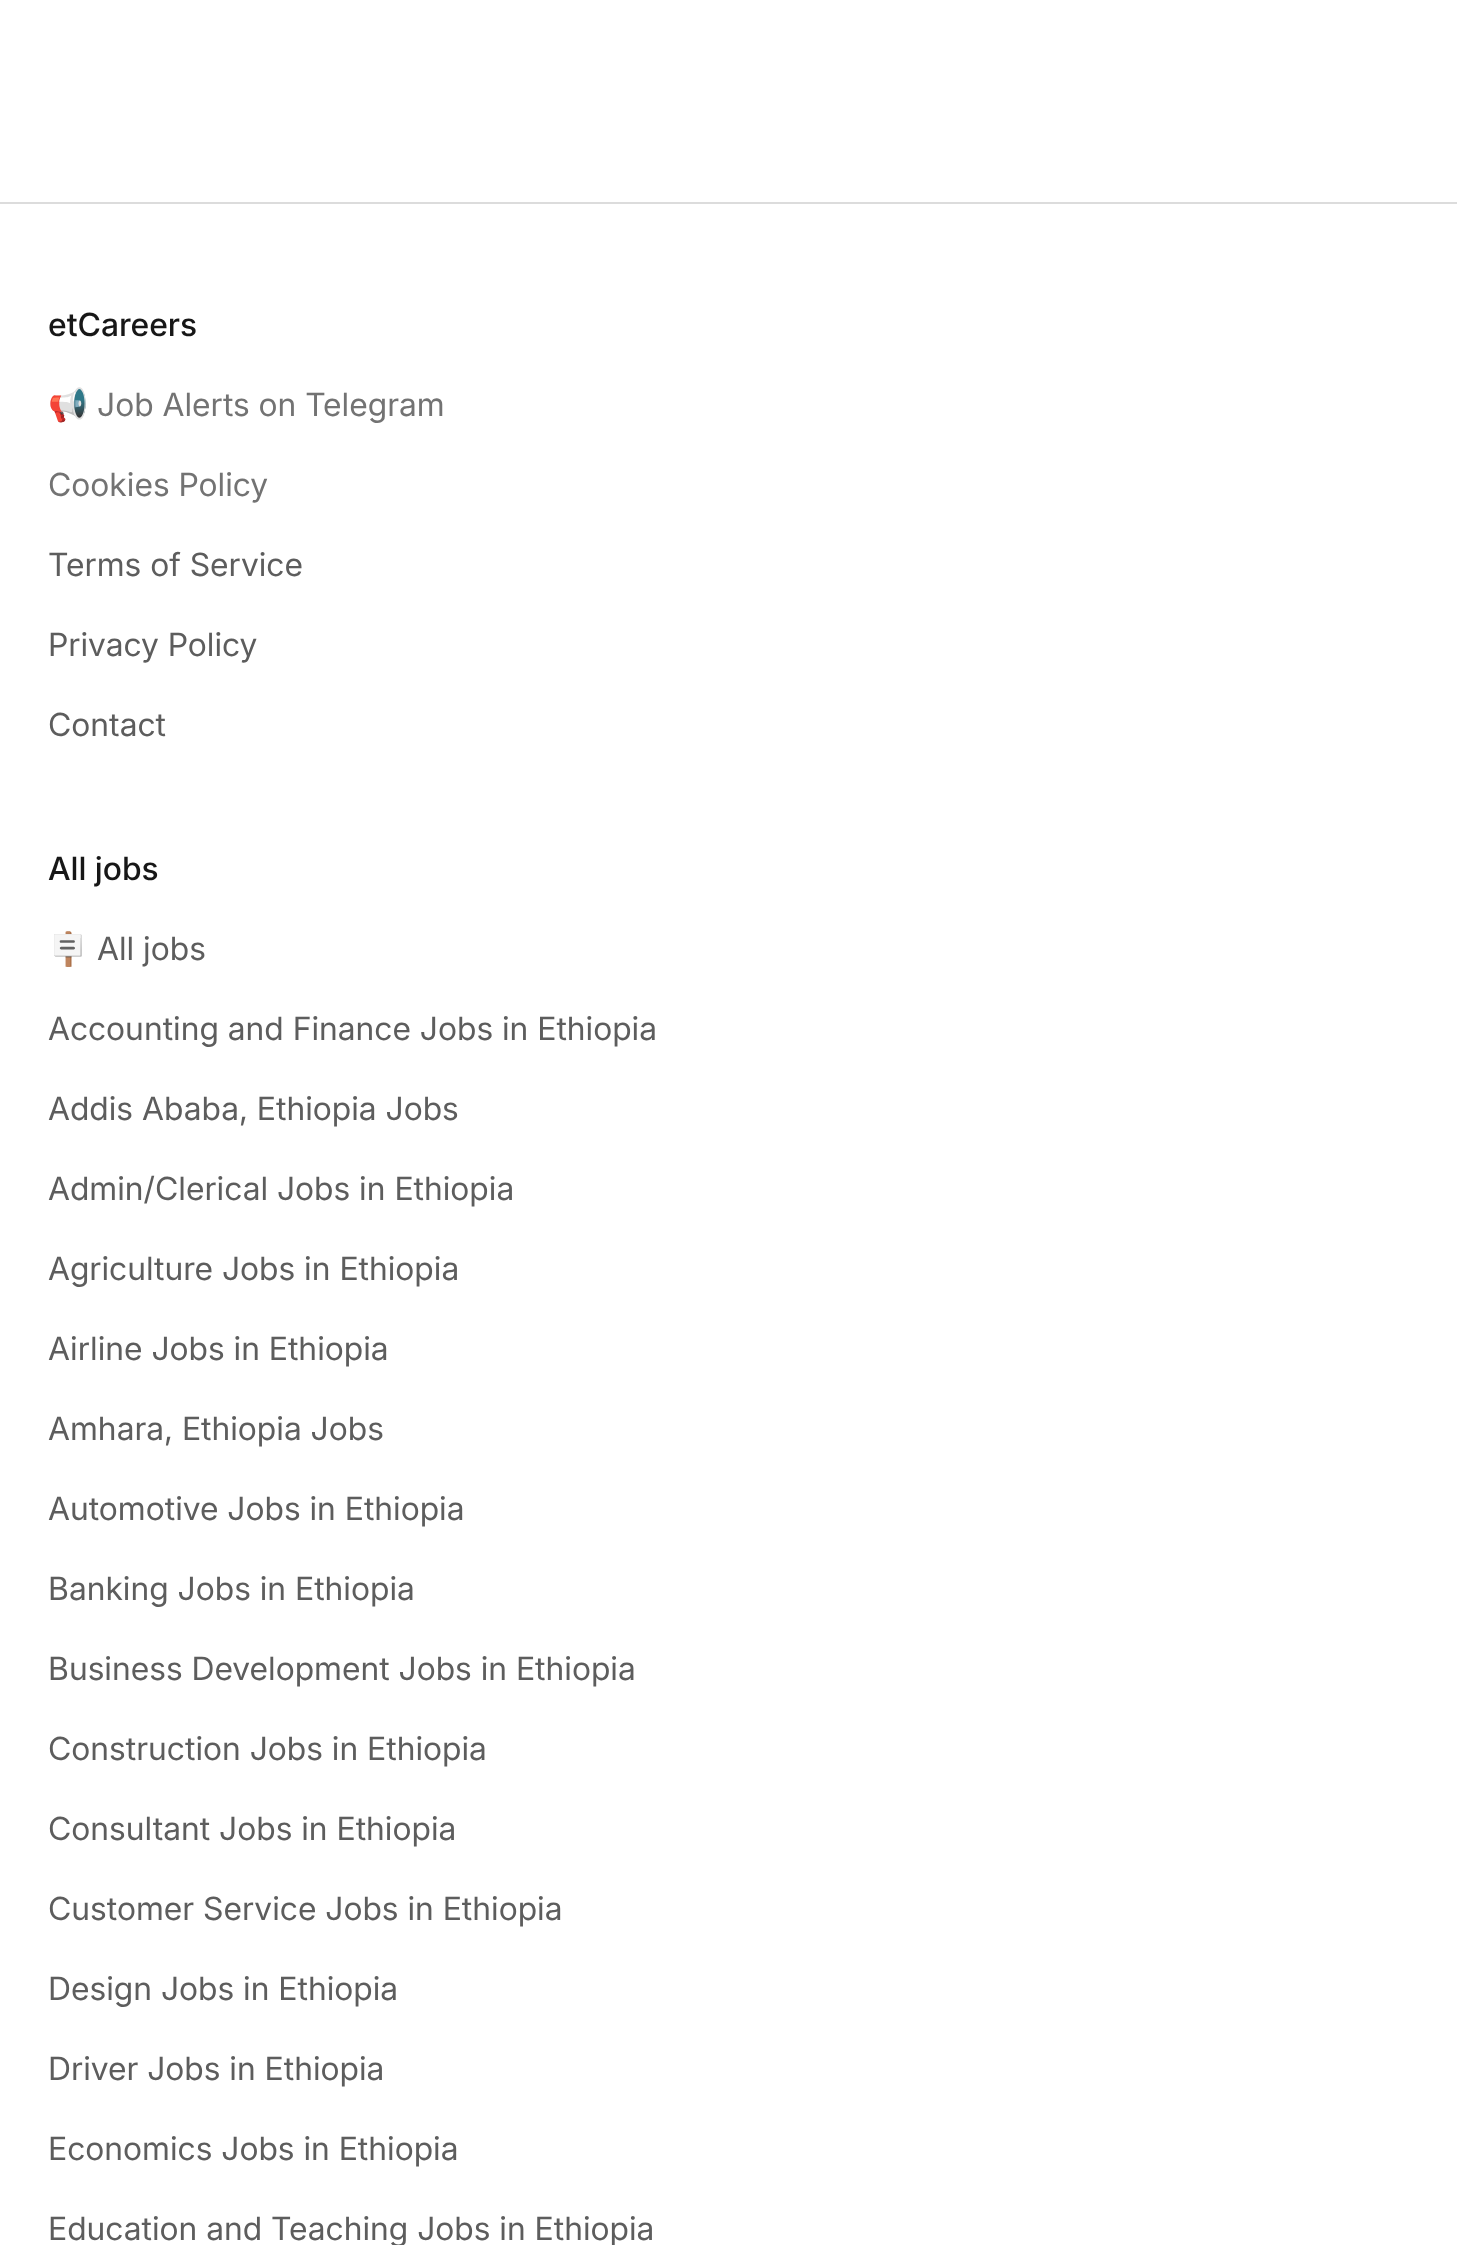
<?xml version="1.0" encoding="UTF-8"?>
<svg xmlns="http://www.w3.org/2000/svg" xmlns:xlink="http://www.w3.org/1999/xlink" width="1457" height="2245">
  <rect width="100%" height="100%" fill="#ffffff" />
  <rect y="202" width="1457" height="2" fill="#dcdcdc" />
  <text x="48" y="336" style="font-family: Inter; font-size: 32px; font-weight: 500; fill: #171717">etCareers</text>
  <text x="48" y="416" style="font-family: Noto Color Emoji; font-size: 32px; fill: #737373">📢</text>
  <text x="97" y="416" style="font-family: Inter; font-size: 32px; fill: #737373">Job Alerts on Telegram</text>
  <text x="48" y="496" style="font-family: Inter; font-size: 32px; fill: #737373">Cookies Policy</text>
  <text x="48" y="576" style="font-family: Inter; font-size: 32px; fill: #5d5d5d">Terms of Service</text>
  <text x="48" y="656" style="font-family: Inter; font-size: 32px; fill: #5d5d5d">Privacy Policy</text>
  <text x="48" y="736" style="font-family: Inter; font-size: 32px; fill: #5d5d5d">Contact</text>
  <text x="48" y="880" style="font-family: Inter; font-size: 32px; font-weight: 500; fill: #171717">All jobs</text>
  <text x="48" y="960" style="font-family: Noto Color Emoji; font-size: 32px; fill: #5d5d5d">🪧</text>
  <text x="97" y="960" style="font-family: Inter; font-size: 32px; fill: #5d5d5d">All jobs</text>
  <text x="48" y="1040" style="font-family: Inter; font-size: 32px; fill: #5d5d5d">Accounting and Finance Jobs in Ethiopia</text>
  <text x="48" y="1120" style="font-family: Inter; font-size: 32px; fill: #5d5d5d">Addis Ababa, Ethiopia Jobs</text>
  <text x="48" y="1200" style="font-family: Inter; font-size: 32px; fill: #5d5d5d">Admin/Clerical Jobs in Ethiopia</text>
  <text x="48" y="1280" style="font-family: Inter; font-size: 32px; fill: #5d5d5d">Agriculture Jobs in Ethiopia</text>
  <text x="48" y="1360" style="font-family: Inter; font-size: 32px; fill: #5d5d5d">Airline Jobs in Ethiopia</text>
  <text x="48" y="1440" style="font-family: Inter; font-size: 32px; fill: #5d5d5d">Amhara, Ethiopia Jobs</text>
  <text x="48" y="1520" style="font-family: Inter; font-size: 32px; fill: #5d5d5d">Automotive Jobs in Ethiopia</text>
  <text x="48" y="1600" style="font-family: Inter; font-size: 32px; fill: #5d5d5d">Banking Jobs in Ethiopia</text>
  <text x="48" y="1680" style="font-family: Inter; font-size: 32px; fill: #5d5d5d">Business Development Jobs in Ethiopia</text>
  <text x="48" y="1760" style="font-family: Inter; font-size: 32px; fill: #5d5d5d">Construction Jobs in Ethiopia</text>
  <text x="48" y="1840" style="font-family: Inter; font-size: 32px; fill: #5d5d5d">Consultant Jobs in Ethiopia</text>
  <text x="48" y="1920" style="font-family: Inter; font-size: 32px; fill: #5d5d5d">Customer Service Jobs in Ethiopia</text>
  <text x="48" y="2000" style="font-family: Inter; font-size: 32px; fill: #5d5d5d">Design Jobs in Ethiopia</text>
  <text x="48" y="2080" style="font-family: Inter; font-size: 32px; fill: #5d5d5d">Driver Jobs in Ethiopia</text>
  <text x="48" y="2160" style="font-family: Inter; font-size: 32px; fill: #5d5d5d">Economics Jobs in Ethiopia</text>
  <text x="48" y="2240" style="font-family: Inter; font-size: 32px; fill: #5d5d5d">Education and Teaching Jobs in Ethiopia</text>
</svg>
